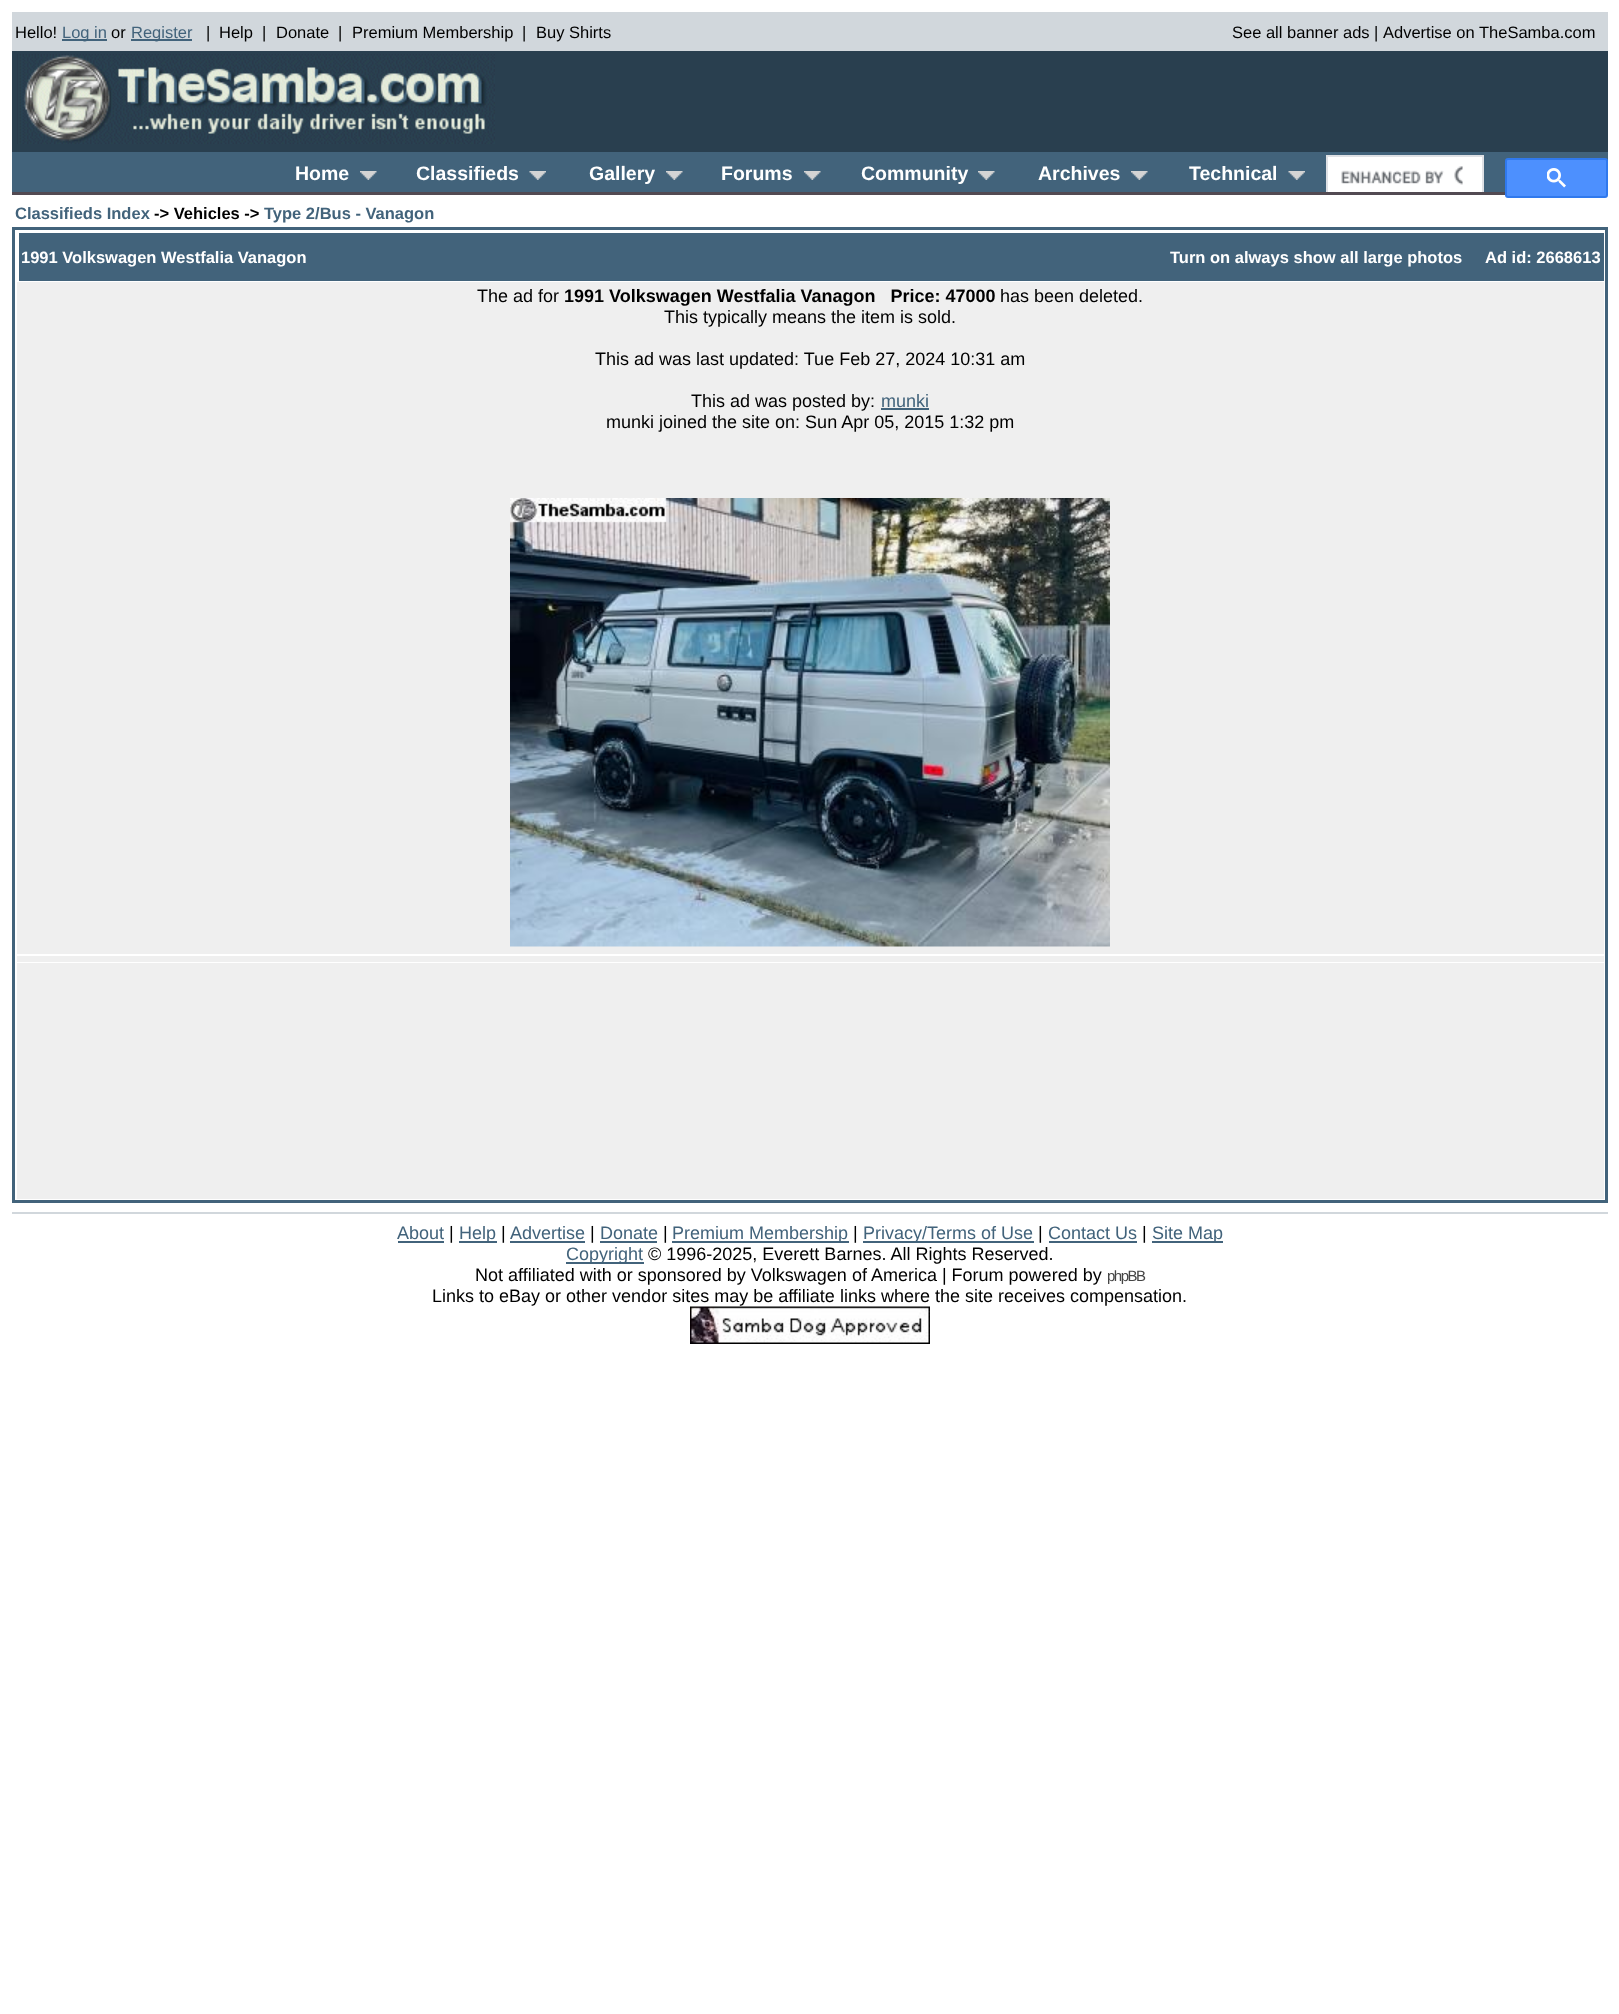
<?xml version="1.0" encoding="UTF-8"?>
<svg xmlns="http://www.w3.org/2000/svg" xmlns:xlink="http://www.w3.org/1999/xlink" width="1619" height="2014">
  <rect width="100%" height="100%" fill="#ffffff" />
  <rect x="12" y="12" width="1596" height="39" fill="#d1d7dc" />
  <rect x="62" y="39" width="45" height="2" fill="#42637b" />
  <rect x="131" y="39" width="61" height="2" fill="#42637b" />
  <rect x="12" y="51" width="1596" height="101" fill="#293f4f" />
  <image x="17" y="54" width="478" height="90" xlink:href="image1.png" />
  <rect x="12" y="152" width="1596" height="40" fill="#42637b" />
  <image x="360" y="171" width="17" height="9" xlink:href="image2.png" />
  <image x="529" y="171" width="17" height="9" xlink:href="image3.png" />
  <image x="666" y="171" width="17" height="9" xlink:href="image4.png" />
  <image x="804" y="171" width="17" height="9" xlink:href="image4.png" />
  <image x="978" y="171" width="17" height="9" xlink:href="image4.png" />
  <image x="1131" y="171" width="17" height="9" xlink:href="image2.png" />
  <image x="1288" y="171" width="17" height="9" xlink:href="image3.png" />
  <rect x="1328" y="157" width="154" height="35" fill="#ffffff" />
  <rect x="1327" y="156" width="156" height="43" fill="none" stroke="#dfe1e5" stroke-width="2" />
  <image x="1341" y="166" width="122" height="19" xlink:href="image5.png" />
  <rect x="1506" y="159" width="101" height="38" rx="2" fill="#4d90fe" stroke="#3079ed" stroke-width="2" />
  <image x="1547" y="168" width="19" height="20" xlink:href="image6.png" />
  <rect x="12" y="192" width="1493" height="3" fill="#524a52" />
  <rect x="1326" y="195" width="158" height="5" fill="#ffffff" />
  <rect x="13.5" y="228.5" width="1593" height="973" fill="none" stroke="#42637b" stroke-width="3" />
  <rect x="19" y="233" width="1585" height="48" fill="#42637b" />
  <rect x="17" y="282" width="1587" height="672" fill="#efefef" />
  <rect x="881" y="408" width="48" height="2" fill="#42637b" />
  <image x="510" y="498" width="600" height="449" xlink:href="image7.png" />
  <rect x="17" y="956" width="1587" height="6" fill="#efefef" />
  <rect x="17" y="963" width="1587" height="236" fill="#efefef" />
  <rect x="12" y="1212" width="1596" height="2" fill="#d1d7dc" />
  <rect x="398" y="1241" width="46" height="2" fill="#42637b" />
  <rect x="459" y="1241" width="38" height="2" fill="#42637b" />
  <rect x="510" y="1241" width="75" height="2" fill="#42637b" />
  <rect x="600" y="1241" width="57" height="2" fill="#42637b" />
  <rect x="672" y="1241" width="177" height="2" fill="#42637b" />
  <rect x="863" y="1241" width="171" height="2" fill="#42637b" />
  <rect x="1049" y="1241" width="88" height="2" fill="#42637b" />
  <rect x="1152" y="1241" width="71" height="2" fill="#42637b" />
  <rect x="566" y="1262" width="78" height="2" fill="#42637b" />
  <image x="690" y="1306" width="240" height="38" xlink:href="image8.png" />
  <text x="15" y="38" style="font-family: Liberation Sans; font-size: 16.5px; fill: #000000">Hello!</text>
  <text x="62" y="38" style="font-family: Liberation Sans; font-size: 16.5px; fill: #42637b">Log in</text>
  <text x="111" y="38" style="font-family: Liberation Sans; font-size: 16.5px; fill: #000000">or</text>
  <text x="131" y="38" style="font-family: Liberation Sans; font-size: 16.5px; fill: #42637b">Register</text>
  <text x="206" y="38" style="font-family: Liberation Sans; font-size: 16.5px; fill: #000000">|</text>
  <text x="219" y="38" style="font-family: Liberation Sans; font-size: 16.5px; fill: #000000">Help</text>
  <text x="262" y="38" style="font-family: Liberation Sans; font-size: 16.5px; fill: #000000">|</text>
  <text x="276" y="38" style="font-family: Liberation Sans; font-size: 16.5px; fill: #000000">Donate</text>
  <text x="338" y="38" style="font-family: Liberation Sans; font-size: 16.5px; fill: #000000">|</text>
  <text x="352" y="38" style="font-family: Liberation Sans; font-size: 16.5px; fill: #000000">Premium Membership</text>
  <text x="522" y="38" style="font-family: Liberation Sans; font-size: 16.5px; fill: #000000">|</text>
  <text x="536" y="38" style="font-family: Liberation Sans; font-size: 16.5px; fill: #000000">Buy Shirts</text>
  <text x="1232" y="38" style="font-family: Liberation Sans; font-size: 16.5px; fill: #000000">See all banner ads</text>
  <text x="1374" y="38" style="font-family: Liberation Sans; font-size: 16.5px; fill: #000000">|</text>
  <text x="1383" y="38" style="font-family: Liberation Sans; font-size: 16.5px; fill: #000000">Advertise on TheSamba.com</text>
  <text x="295" y="180" style="font-family: Liberation Sans; font-size: 19.5px; font-weight: bold; fill: #ffffff">Home</text>
  <text x="416" y="180" style="font-family: Liberation Sans; font-size: 19.5px; font-weight: bold; fill: #ffffff">Classifieds</text>
  <text x="589" y="180" style="font-family: Liberation Sans; font-size: 19.5px; font-weight: bold; fill: #ffffff">Gallery</text>
  <text x="721" y="180" style="font-family: Liberation Sans; font-size: 19.5px; font-weight: bold; fill: #ffffff">Forums</text>
  <text x="861" y="180" style="font-family: Liberation Sans; font-size: 19.5px; font-weight: bold; fill: #ffffff">Community</text>
  <text x="1038" y="180" style="font-family: Liberation Sans; font-size: 19.5px; font-weight: bold; fill: #ffffff">Archives</text>
  <text x="1189" y="180" style="font-family: Liberation Sans; font-size: 19.5px; font-weight: bold; fill: #ffffff">Technical</text>
  <text x="15" y="219" style="font-family: Liberation Sans; font-size: 16.5px; font-weight: bold; fill: #42637b">Classifieds Index</text>
  <text x="154" y="219" style="font-family: Liberation Sans; font-size: 16.5px; font-weight: bold; fill: #000000">-&gt; Vehicles -&gt;</text>
  <text x="264" y="219" style="font-family: Liberation Sans; font-size: 16.5px; font-weight: bold; fill: #42637b">Type 2/Bus - Vanagon</text>
  <text x="21" y="263" style="font-family: Liberation Sans; font-size: 16.5px; font-weight: bold; fill: #ffffff">1991 Volkswagen Westfalia Vanagon</text>
  <text x="1170" y="263" style="font-family: Liberation Sans; font-size: 16.5px; font-weight: bold; fill: #ffffff">Turn on always show all large photos</text>
  <text x="1485" y="263" style="font-family: Liberation Sans; font-size: 16.5px; font-weight: bold; fill: #ffffff">Ad id: 2668613</text>
  <text x="477" y="302" style="font-family: Liberation Sans; font-size: 18px; fill: #000000">The ad for</text>
  <text x="564" y="302" style="font-family: Liberation Sans; font-size: 18px; font-weight: bold; fill: #000000" xml:space="preserve">1991 Volkswagen Westfalia Vanagon   Price: 47000</text>
  <text x="1000" y="302" style="font-family: Liberation Sans; font-size: 18px; fill: #000000">has been deleted.</text>
  <text x="664" y="323" style="font-family: Liberation Sans; font-size: 18px; fill: #000000">This typically means the item is sold.</text>
  <text x="595" y="365" style="font-family: Liberation Sans; font-size: 18px; fill: #000000">This ad was last updated: Tue Feb 27, 2024 10:31 am</text>
  <text x="691" y="407" style="font-family: Liberation Sans; font-size: 18px; fill: #000000">This ad was posted by:</text>
  <text x="881" y="407" style="font-family: Liberation Sans; font-size: 18px; fill: #42637b">munki</text>
  <text x="606" y="428" style="font-family: Liberation Sans; font-size: 18px; fill: #000000">munki joined the site on: Sun Apr 05, 2015 1:32 pm</text>
  <text x="397" y="1239" style="font-family: Liberation Sans; font-size: 18px; fill: #42637b">About</text>
  <text x="449" y="1239" style="font-family: Liberation Sans; font-size: 18px; fill: #000000">|</text>
  <text x="459" y="1239" style="font-family: Liberation Sans; font-size: 18px; fill: #42637b">Help</text>
  <text x="501" y="1239" style="font-family: Liberation Sans; font-size: 18px; fill: #000000">|</text>
  <text x="510" y="1239" style="font-family: Liberation Sans; font-size: 18px; fill: #42637b">Advertise</text>
  <text x="590" y="1239" style="font-family: Liberation Sans; font-size: 18px; fill: #000000">|</text>
  <text x="600" y="1239" style="font-family: Liberation Sans; font-size: 18px; fill: #42637b">Donate</text>
  <text x="663" y="1239" style="font-family: Liberation Sans; font-size: 18px; fill: #000000">|</text>
  <text x="672" y="1239" style="font-family: Liberation Sans; font-size: 18px; fill: #42637b">Premium Membership</text>
  <text x="853" y="1239" style="font-family: Liberation Sans; font-size: 18px; fill: #000000">|</text>
  <text x="863" y="1239" style="font-family: Liberation Sans; font-size: 18px; fill: #42637b">Privacy/Terms of Use</text>
  <text x="1038" y="1239" style="font-family: Liberation Sans; font-size: 18px; fill: #000000">|</text>
  <text x="1048" y="1239" style="font-family: Liberation Sans; font-size: 18px; fill: #42637b">Contact Us</text>
  <text x="1142" y="1239" style="font-family: Liberation Sans; font-size: 18px; fill: #000000">|</text>
  <text x="1152" y="1239" style="font-family: Liberation Sans; font-size: 18px; fill: #42637b">Site Map</text>
  <text x="566" y="1260" style="font-family: Liberation Sans; font-size: 18px; fill: #42637b">Copyright</text>
  <text x="648" y="1260" style="font-family: Liberation Sans; font-size: 18px; fill: #000000">© 1996-2025, Everett Barnes. All Rights Reserved.</text>
  <text x="475" y="1281" style="font-family: Liberation Sans; font-size: 18px; fill: #000000">Not affiliated with or sponsored by Volkswagen of America | Forum powered by</text>
  <text x="1107" y="1281" style="font-family: Liberation Sans; font-size: 15px; letter-spacing: -1.5px; fill: #444444">phpBB</text>
  <text x="432" y="1302" style="font-family: Liberation Sans; font-size: 18px; fill: #000000">Links to eBay or other vendor sites may be affiliate links where the site receives compensation.</text>
</svg>
